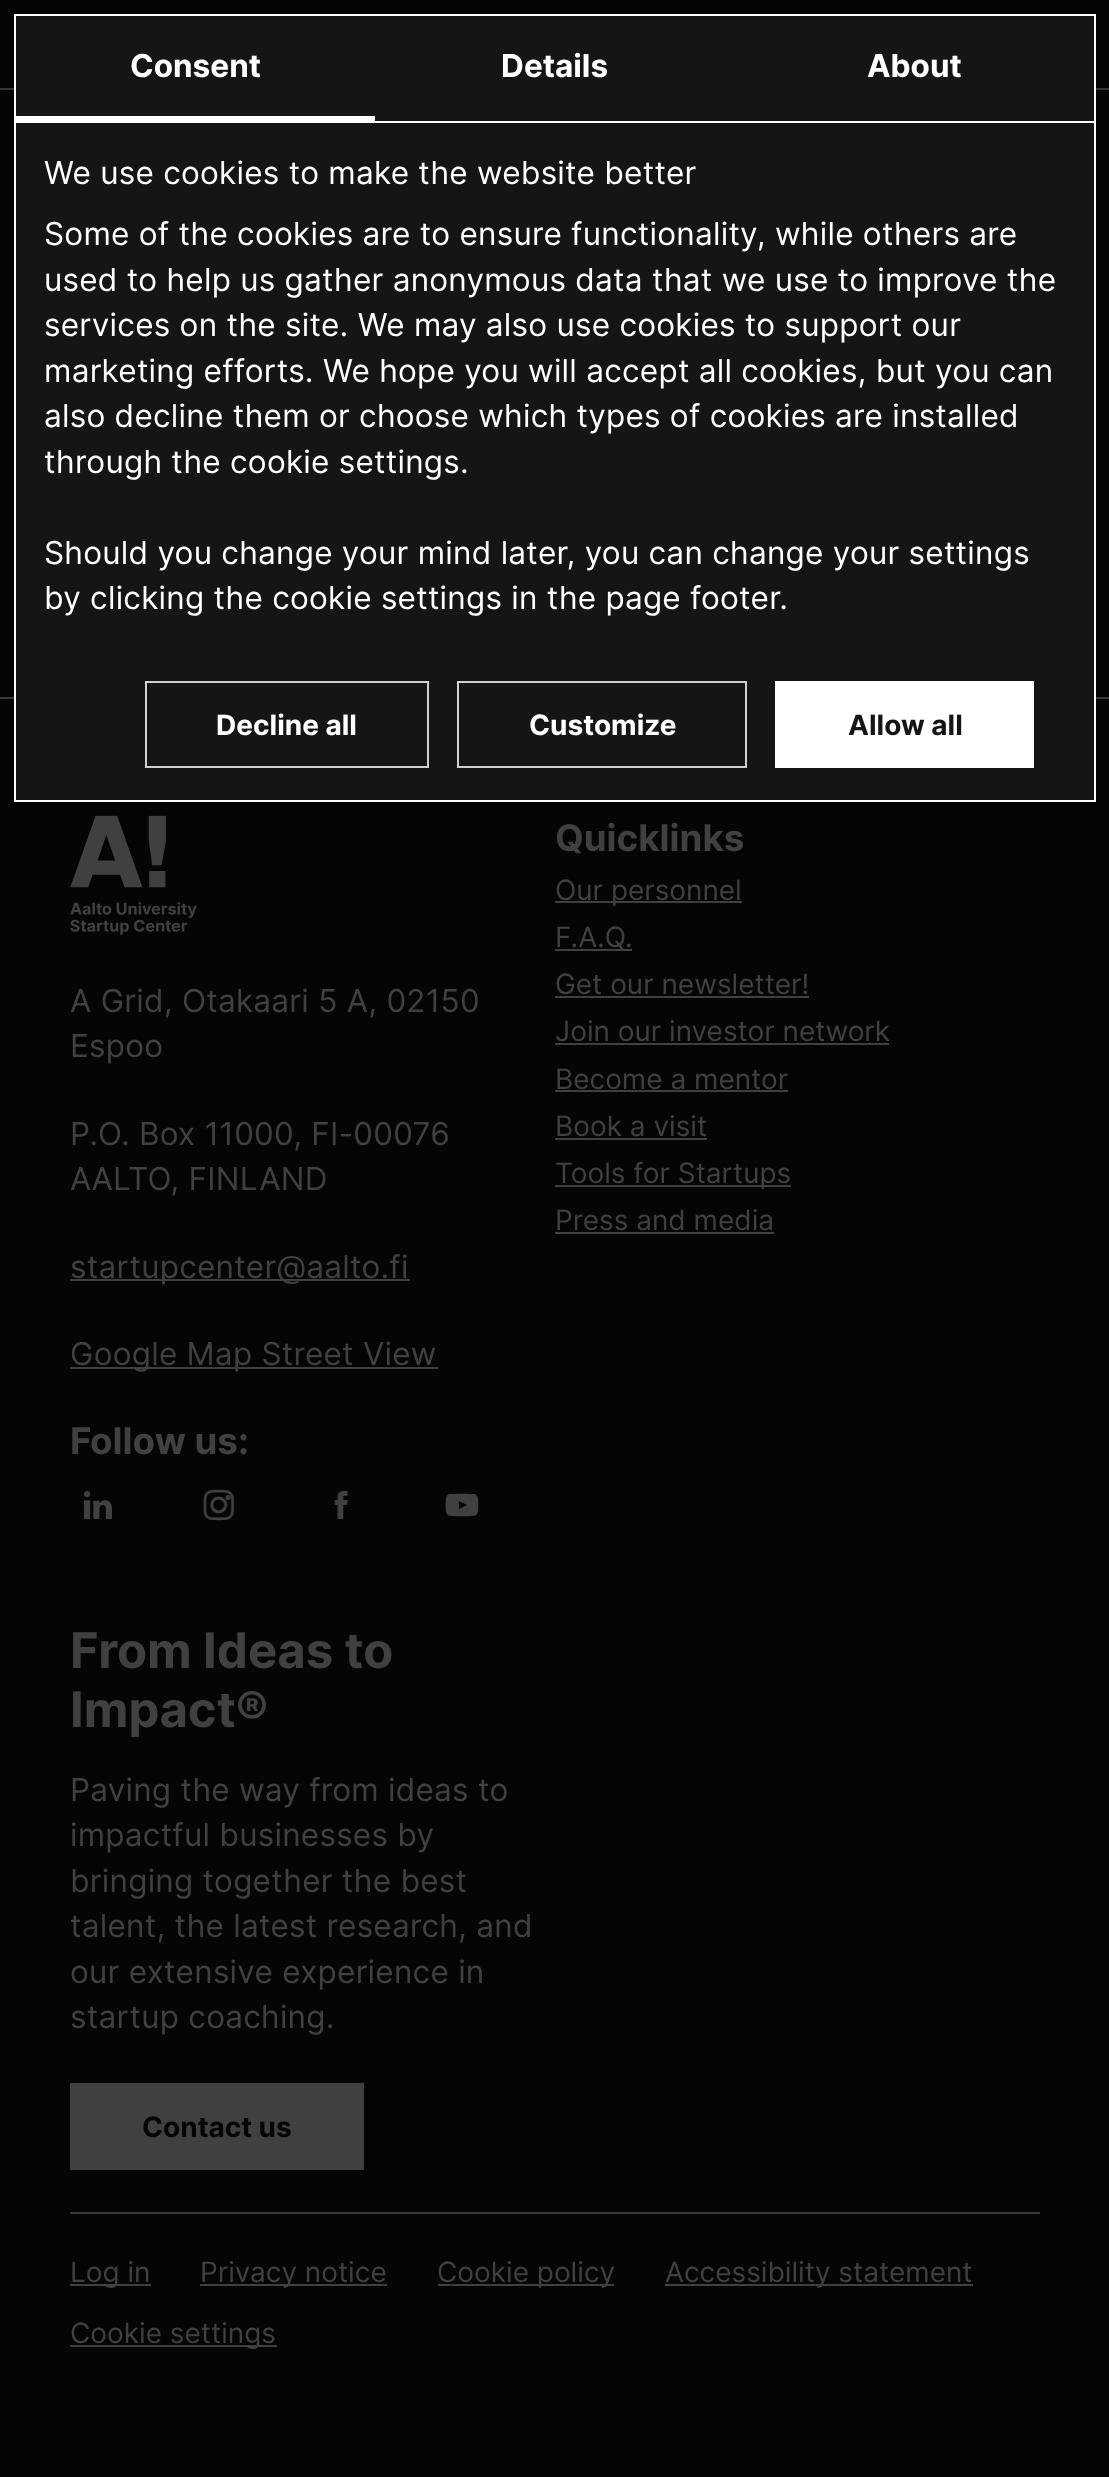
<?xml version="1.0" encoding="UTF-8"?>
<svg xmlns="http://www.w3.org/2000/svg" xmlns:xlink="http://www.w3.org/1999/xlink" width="1109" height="2477">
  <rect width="100%" height="100%" fill="#050505" />
  <rect y="88" width="1109" height="2" fill="#343434" />
  <rect y="697" width="1109" height="2" fill="#393939" />
  <rect x="15" y="15" width="1080" height="786" fill="#151515" stroke="#ffffff" stroke-width="2" />
  <rect x="16" y="121" width="1078" height="2" fill="#ffffff" />
  <rect x="16" y="116" width="359" height="5" fill="#ffffff" />
  <rect x="146" y="682" width="282" height="85" fill="none" stroke="#d0d0d0" stroke-width="2" />
  <rect x="458" y="682" width="288" height="85" fill="none" stroke="#d0d0d0" stroke-width="2" />
  <rect x="775" y="681" width="259" height="87" fill="#ffffff" />
  <image x="70" y="815" width="127" height="120" xlink:href="image1.png" />
  <rect x="70" y="1279" width="340" height="2" fill="#404040" />
  <rect x="70" y="1367" width="368" height="2" fill="#404040" />
  <image x="84" y="1491" width="28" height="28" xlink:href="image2.png" />
  <image x="202" y="1489" width="33" height="32" xlink:href="image3.png" />
  <image x="334" y="1491" width="15" height="28" xlink:href="image4.png" />
  <image x="445" y="1493" width="34" height="24" xlink:href="image5.png" />
  <rect x="555" y="901" width="187" height="2" fill="#404040" />
  <rect x="555" y="949" width="77" height="2" fill="#404040" />
  <rect x="555" y="996" width="254" height="2" fill="#404040" />
  <rect x="555" y="1043" width="334" height="2" fill="#404040" />
  <rect x="555" y="1090" width="233" height="2" fill="#404040" />
  <rect x="555" y="1138" width="152" height="2" fill="#404040" />
  <rect x="555" y="1185" width="236" height="2" fill="#404040" />
  <rect x="555" y="1232" width="219" height="2" fill="#404040" />
  <rect x="70" y="2083" width="294" height="87" fill="#404040" />
  <rect x="70" y="2212" width="970" height="2" fill="#393939" />
  <rect x="70" y="2284" width="81" height="2" fill="#404040" />
  <rect x="200" y="2284" width="187" height="2" fill="#404040" />
  <rect x="438" y="2284" width="176" height="2" fill="#404040" />
  <rect x="665" y="2284" width="308" height="2" fill="#404040" />
  <rect x="70" y="2345" width="207" height="2" fill="#404040" />
  <text x="130" y="77" style="font-family: Inter; font-size: 31.5px; font-weight: bold; fill: #ffffff">Consent</text>
  <text x="501" y="77" style="font-family: Inter; font-size: 31.5px; font-weight: bold; fill: #ffffff">Details</text>
  <text x="867" y="77" style="font-family: Inter; font-size: 31.5px; font-weight: bold; fill: #ffffff">About</text>
  <text x="44" y="184" style="font-family: Inter; font-size: 31.5px; letter-spacing: 0.25px; fill: #ffffff">We use cookies to make the website better</text>
  <text x="44" y="245" style="font-family: Inter; font-size: 31.5px; letter-spacing: 0.25px; fill: #ffffff">Some of the cookies are to ensure functionality, while others are</text>
  <text x="44" y="291" style="font-family: Inter; font-size: 31.5px; letter-spacing: 0.25px; fill: #ffffff">used to help us gather anonymous data that we use to improve the</text>
  <text x="44" y="336" style="font-family: Inter; font-size: 31.5px; letter-spacing: 0.25px; fill: #ffffff">services on the site. We may also use cookies to support our</text>
  <text x="44" y="382" style="font-family: Inter; font-size: 31.5px; letter-spacing: 0.25px; fill: #ffffff">marketing efforts. We hope you will accept all cookies, but you can</text>
  <text x="44" y="427" style="font-family: Inter; font-size: 31.5px; letter-spacing: 0.25px; fill: #ffffff">also decline them or choose which types of cookies are installed</text>
  <text x="44" y="473" style="font-family: Inter; font-size: 31.5px; letter-spacing: 0.25px; fill: #ffffff">through the cookie settings.</text>
  <text x="44" y="564" style="font-family: Inter; font-size: 31.5px; letter-spacing: 0.25px; fill: #ffffff">Should you change your mind later, you can change your settings</text>
  <text x="44" y="609" style="font-family: Inter; font-size: 31.5px; letter-spacing: 0.25px; fill: #ffffff">by clicking the cookie settings in the page footer.</text>
  <text x="216" y="735" style="font-family: Inter; font-size: 28px; font-weight: bold; fill: #ffffff">Decline all</text>
  <text x="529" y="735" style="font-family: Inter; font-size: 28px; font-weight: bold; fill: #ffffff">Customize</text>
  <text x="848" y="735" style="font-family: Inter; font-size: 28px; font-weight: bold; fill: #151515">Allow all</text>
  <text x="70" y="1012" style="font-family: Inter; font-size: 31.5px; letter-spacing: 0.25px; fill: #404040">A Grid, Otakaari 5 A, 02150</text>
  <text x="70" y="1057" style="font-family: Inter; font-size: 31.5px; letter-spacing: 0.25px; fill: #404040">Espoo</text>
  <text x="70" y="1145" style="font-family: Inter; font-size: 31.5px; letter-spacing: 0.25px; fill: #404040">P.O. Box 11000, FI-00076</text>
  <text x="70" y="1190" style="font-family: Inter; font-size: 31.5px; letter-spacing: 0.25px; fill: #404040">AALTO, FINLAND</text>
  <text x="70" y="1278" style="font-family: Inter; font-size: 31.5px; letter-spacing: 0.25px; fill: #404040">startupcenter@aalto.fi</text>
  <text x="70" y="1365" style="font-family: Inter; font-size: 31.5px; letter-spacing: 0.25px; fill: #404040">Google Map Street View</text>
  <text x="70" y="1454" style="font-family: Inter; font-size: 36.75px; font-weight: bold; fill: #404040">Follow us:</text>
  <text x="555" y="851" style="font-family: Inter; font-size: 36.75px; font-weight: bold; fill: #404040">Quicklinks</text>
  <text x="555" y="900" style="font-family: Inter; font-size: 28px; fill: #404040">Our personnel</text>
  <text x="555" y="947" style="font-family: Inter; font-size: 28px; fill: #404040">F.A.Q.</text>
  <text x="555" y="994" style="font-family: Inter; font-size: 28px; fill: #404040">Get our newsletter!</text>
  <text x="555" y="1041" style="font-family: Inter; font-size: 28px; fill: #404040">Join our investor network</text>
  <text x="555" y="1089" style="font-family: Inter; font-size: 28px; fill: #404040">Become a mentor</text>
  <text x="555" y="1136" style="font-family: Inter; font-size: 28px; fill: #404040">Book a visit</text>
  <text x="555" y="1183" style="font-family: Inter; font-size: 28px; fill: #404040">Tools for Startups</text>
  <text x="555" y="1230" style="font-family: Inter; font-size: 28px; fill: #404040">Press and media</text>
  <text x="70" y="1668" style="font-family: Inter; font-size: 49px; font-weight: bold; fill: #404040">From Ideas to</text>
  <text x="70" y="1727" style="font-family: Inter; font-size: 49px; font-weight: bold; fill: #404040">Impact®</text>
  <text x="70" y="1801" style="font-family: Inter; font-size: 31.5px; letter-spacing: 0.25px; fill: #404040">Paving the way from ideas to</text>
  <text x="70" y="1846" style="font-family: Inter; font-size: 31.5px; letter-spacing: 0.25px; fill: #404040">impactful businesses by</text>
  <text x="70" y="1892" style="font-family: Inter; font-size: 31.5px; letter-spacing: 0.25px; fill: #404040">bringing together the best</text>
  <text x="70" y="1937" style="font-family: Inter; font-size: 31.5px; letter-spacing: 0.25px; fill: #404040">talent, the latest research, and</text>
  <text x="70" y="1983" style="font-family: Inter; font-size: 31.5px; letter-spacing: 0.25px; fill: #404040">our extensive experience in</text>
  <text x="70" y="2028" style="font-family: Inter; font-size: 31.5px; letter-spacing: 0.25px; fill: #404040">startup coaching.</text>
  <text x="142" y="2137" style="font-family: Inter; font-size: 28px; font-weight: bold; fill: #050505">Contact us</text>
  <text x="70" y="2282" style="font-family: Inter; font-size: 28px; fill: #404040">Log in</text>
  <text x="200" y="2282" style="font-family: Inter; font-size: 28px; fill: #404040">Privacy notice</text>
  <text x="437" y="2282" style="font-family: Inter; font-size: 28px; fill: #404040">Cookie policy</text>
  <text x="665" y="2282" style="font-family: Inter; font-size: 28px; fill: #404040">Accessibility statement</text>
  <text x="70" y="2343" style="font-family: Inter; font-size: 28px; fill: #404040">Cookie settings</text>
</svg>
